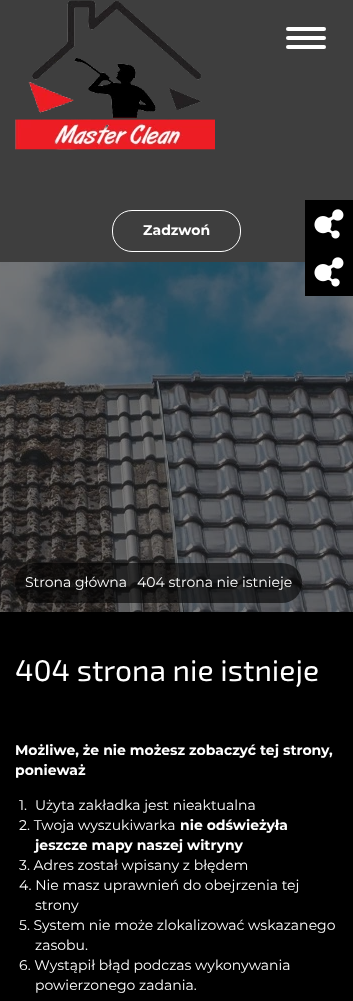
<?xml version="1.0" encoding="UTF-8"?>
<svg xmlns="http://www.w3.org/2000/svg" xmlns:xlink="http://www.w3.org/1999/xlink" width="353" height="1001">
  <rect width="100%" height="100%" fill="#000000" />
  <rect width="353" height="262" fill="#3e3e3e" />
  <image x="15" y="0" width="200" height="150" xlink:href="image1.png" />
  <rect x="286" y="27" width="40" height="4" rx="2" fill="#ffffff" />
  <rect x="286" y="36" width="40" height="4" rx="2" fill="#ffffff" />
  <rect x="286" y="45" width="40" height="4" rx="2" fill="#ffffff" />
  <rect x="112.5" y="210.5" width="128" height="41" rx="19.5" fill="none" stroke="#ffffff" />
  <image x="0" y="262" width="353" height="350" xlink:href="image3.png" />
  <rect x="305" y="200" width="48" height="96" fill="#000000" />
  <image x="314" y="209" width="30" height="30" xlink:href="image2.png" />
  <image x="314" y="257" width="30" height="30" xlink:href="image2.png" />
  <rect x="15" y="563" width="287" height="40" rx="20" fill="#000000" fill-opacity="0.6" />
  <text x="143" y="235" style="font-family: Montserrat; font-size: 14px; font-weight: bold; fill: #ffffff">Zadzwoń</text>
  <text x="25" y="587" style="font-family: Montserrat; font-size: 14px; fill: #ffffff">Strona główna</text>
  <text x="137" y="587" style="font-family: Montserrat; font-size: 14px; fill: #ffffff">404 strona nie istnieje</text>
  <text x="15" y="681" style="font-family: 'Exo 2'; font-size: 30px; fill: #ffffff">404 strona nie istnieje</text>
  <text x="15" y="755" style="font-family: Montserrat; font-size: 14px; font-weight: bold; fill: #ffffff">Możliwe, że nie możesz zobaczyć tej strony,</text>
  <text x="15" y="775" style="font-family: Montserrat; font-size: 14px; font-weight: bold; fill: #ffffff">ponieważ</text>
  <text x="19" y="810" style="font-family: Montserrat; font-size: 14px; fill: #ffffff">1.</text>
  <text x="35" y="810" style="font-family: Montserrat; font-size: 14px; fill: #ffffff">Użyta zakładka jest nieaktualna</text>
  <text x="19" y="830" style="font-family: Montserrat; font-size: 14px; fill: #ffffff">2. Twoja wyszukiwarka</text>
  <text x="180" y="830" style="font-family: Montserrat; font-size: 14px; font-weight: bold; fill: #ffffff">nie odświeżyła</text>
  <text x="35" y="850" style="font-family: Montserrat; font-size: 14px; font-weight: bold; fill: #ffffff">jeszcze mapy naszej witryny</text>
  <text x="19" y="870" style="font-family: Montserrat; font-size: 14px; fill: #ffffff">3. Adres został wpisany z błędem</text>
  <text x="19" y="890" style="font-family: Montserrat; font-size: 14px; fill: #ffffff">4. Nie masz uprawnień do obejrzenia tej</text>
  <text x="35" y="910" style="font-family: Montserrat; font-size: 14px; fill: #ffffff">strony</text>
  <text x="19" y="930" style="font-family: Montserrat; font-size: 14px; fill: #ffffff">5. System nie może zlokalizować wskazanego</text>
  <text x="35" y="950" style="font-family: Montserrat; font-size: 14px; fill: #ffffff">zasobu.</text>
  <text x="19" y="970" style="font-family: Montserrat; font-size: 14px; fill: #ffffff">6. Wystąpił błąd podczas wykonywania</text>
  <text x="35" y="990" style="font-family: Montserrat; font-size: 14px; fill: #ffffff">powierzonego zadania.</text>
</svg>
